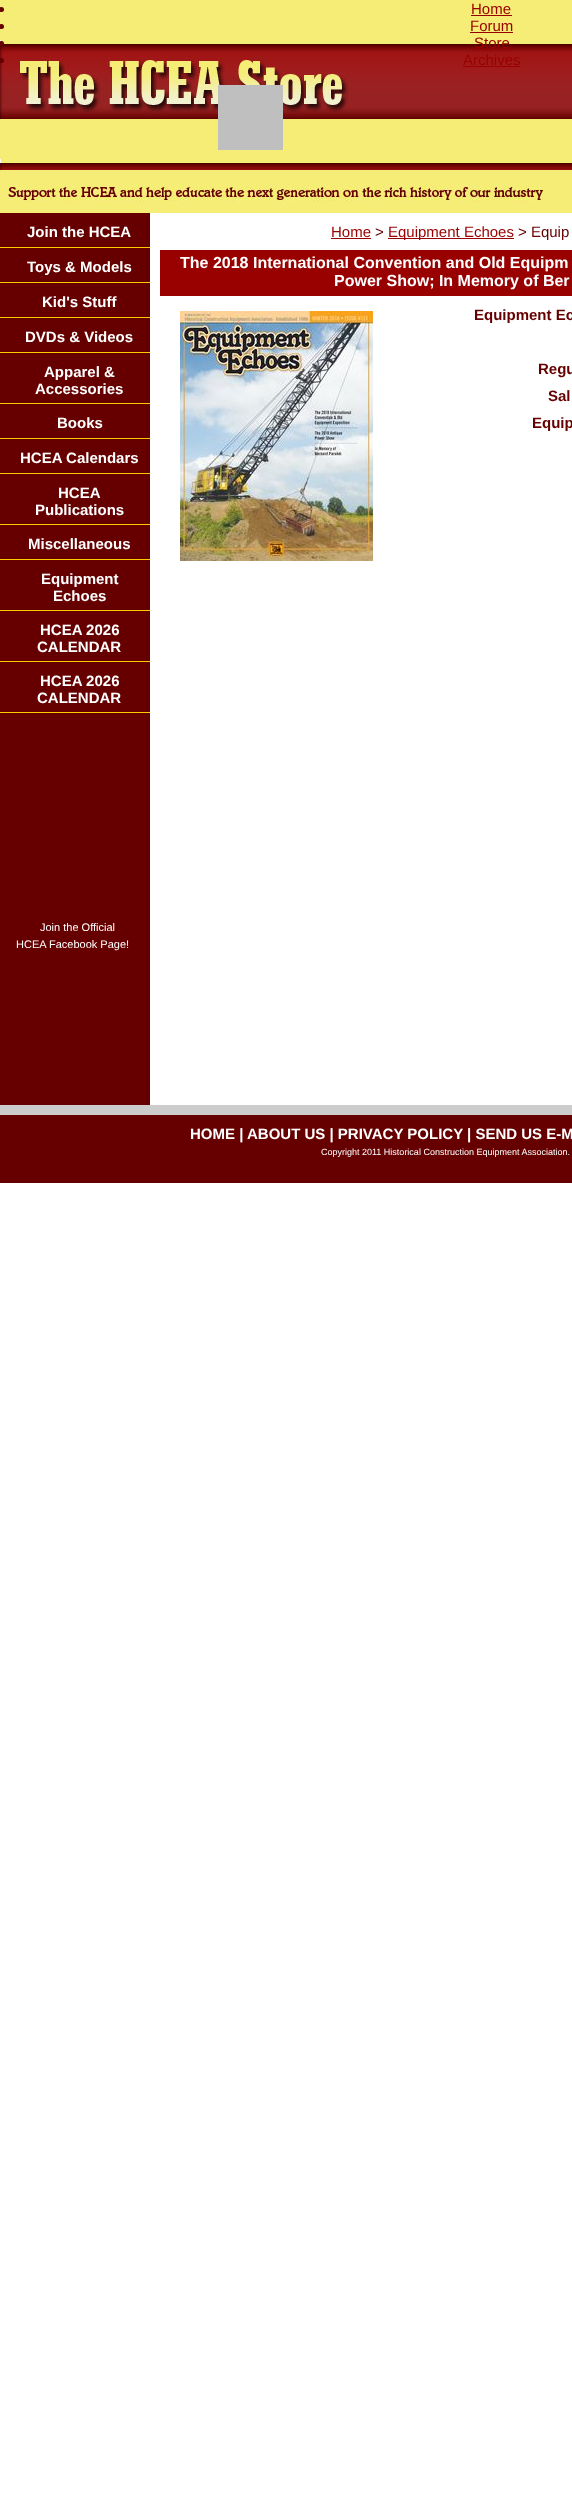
<?xml version="1.0" encoding="UTF-8"?>
<svg xmlns="http://www.w3.org/2000/svg" xmlns:xlink="http://www.w3.org/1999/xlink" width="572" height="2513">
  <rect width="100%" height="100%" fill="#ffffff" />
  <image x="0" y="0" width="572" height="170" xlink:href="image1.png" />
  <circle cx="1.5" cy="9.5" r="2.5" fill="#660000" />
  <rect x="471" y="15" width="41" height="1" fill="#990000" />
  <circle cx="1.5" cy="26.5" r="2.5" fill="#660000" />
  <rect x="470" y="32" width="43" height="1" fill="#990000" />
  <circle cx="1.5" cy="43.5" r="2.5" fill="#660000" />
  <rect x="474" y="49" width="35" height="1" fill="#990000" />
  <circle cx="1.5" cy="60.5" r="2.5" fill="#660000" />
  <rect x="463" y="66" width="57" height="1" fill="#990000" />
  <rect x="218" y="85" width="65" height="65" fill="#bfbfbf" />
  <image x="0" y="170" width="572" height="43" xlink:href="image2.png" />
  <rect y="213" width="150" height="892" fill="#660000" />
  <rect y="247" width="150" height="1" fill="#ffcc00" />
  <rect y="282" width="150" height="1" fill="#ffcc00" />
  <rect y="317" width="150" height="1" fill="#ffcc00" />
  <rect y="352" width="150" height="1" fill="#ffcc00" />
  <rect y="403" width="150" height="1" fill="#ffcc00" />
  <rect y="438" width="150" height="1" fill="#ffcc00" />
  <rect y="473" width="150" height="1" fill="#ffcc00" />
  <rect y="524" width="150" height="1" fill="#ffcc00" />
  <rect y="559" width="150" height="1" fill="#ffcc00" />
  <rect y="610" width="150" height="1" fill="#ffcc00" />
  <rect y="661" width="150" height="1" fill="#ffcc00" />
  <rect y="712" width="150" height="1" fill="#ffcc00" />
  <rect x="331" y="238" width="40" height="1" fill="#990000" />
  <rect x="388" y="238" width="126" height="1" fill="#990000" />
  <rect x="160" y="250" width="412" height="46" fill="#990000" />
  <image x="180" y="311" width="193" height="250" xlink:href="image3.png" />
  <rect y="1115" width="572" height="68" fill="#660000" />
  <rect y="1105" width="572" height="10" fill="#cccccc" />
  <text x="471" y="14" style="font-family: Liberation Sans; font-size: 15px; fill: #990000">Home</text>
  <text x="470" y="31" style="font-family: Liberation Sans; font-size: 15px; fill: #990000">Forum</text>
  <text x="474" y="48" style="font-family: Liberation Sans; font-size: 15px; fill: #990000">Store</text>
  <text x="463" y="65" style="font-family: Liberation Sans; font-size: 15px; fill: #990000">Archives</text>
  <text x="27" y="237" style="font-family: Liberation Sans; font-size: 15px; font-weight: bold; fill: #ffffff">Join the HCEA</text>
  <text x="27" y="272" style="font-family: Liberation Sans; font-size: 15px; font-weight: bold; fill: #ffffff">Toys &amp; Models</text>
  <text x="42" y="307" style="font-family: Liberation Sans; font-size: 15px; font-weight: bold; fill: #ffffff">Kid's Stuff</text>
  <text x="25" y="342" style="font-family: Liberation Sans; font-size: 15px; font-weight: bold; fill: #ffffff">DVDs &amp; Videos</text>
  <text x="44" y="377" style="font-family: Liberation Sans; font-size: 15px; font-weight: bold; fill: #ffffff">Apparel &amp;</text>
  <text x="35" y="394" style="font-family: Liberation Sans; font-size: 15px; font-weight: bold; fill: #ffffff">Accessories</text>
  <text x="57" y="428" style="font-family: Liberation Sans; font-size: 15px; font-weight: bold; fill: #ffffff">Books</text>
  <text x="20" y="463" style="font-family: Liberation Sans; font-size: 15px; font-weight: bold; fill: #ffffff">HCEA Calendars</text>
  <text x="58" y="498" style="font-family: Liberation Sans; font-size: 15px; font-weight: bold; fill: #ffffff">HCEA</text>
  <text x="35" y="515" style="font-family: Liberation Sans; font-size: 15px; font-weight: bold; fill: #ffffff">Publications</text>
  <text x="28" y="549" style="font-family: Liberation Sans; font-size: 15px; font-weight: bold; fill: #ffffff">Miscellaneous</text>
  <text x="41" y="584" style="font-family: Liberation Sans; font-size: 15px; font-weight: bold; fill: #ffffff">Equipment</text>
  <text x="53" y="601" style="font-family: Liberation Sans; font-size: 15px; font-weight: bold; fill: #ffffff">Echoes</text>
  <text x="40" y="635" style="font-family: Liberation Sans; font-size: 15px; font-weight: bold; fill: #ffffff">HCEA 2026</text>
  <text x="37" y="652" style="font-family: Liberation Sans; font-size: 15px; font-weight: bold; fill: #ffffff">CALENDAR</text>
  <text x="40" y="686" style="font-family: Liberation Sans; font-size: 15px; font-weight: bold; fill: #ffffff">HCEA 2026</text>
  <text x="37" y="703" style="font-family: Liberation Sans; font-size: 15px; font-weight: bold; fill: #ffffff">CALENDAR</text>
  <text x="40" y="931" style="font-family: Liberation Sans; font-size: 11px; fill: #ffffff">Join the Official</text>
  <text x="16" y="948" style="font-family: Liberation Sans; font-size: 11px; fill: #ffffff">HCEA Facebook Page!</text>
  <text x="331" y="237" style="font-family: Liberation Sans; font-size: 15px; fill: #990000">Home</text>
  <text x="375" y="237" style="font-family: Liberation Sans; font-size: 15px; fill: #660000">&gt;</text>
  <text x="388" y="237" style="font-family: Liberation Sans; font-size: 15px; fill: #990000">Equipment Echoes</text>
  <text x="518" y="237" style="font-family: Liberation Sans; font-size: 15px; fill: #660000">&gt; Equip</text>
  <text x="180" y="268" style="font-family: Liberation Sans; font-size: 16px; font-weight: bold; fill: #ffffff">The 2018 International Convention and Old Equipm</text>
  <text x="334" y="286" style="font-family: Liberation Sans; font-size: 16px; font-weight: bold; fill: #ffffff">Power Show; In Memory of Ber</text>
  <text x="474" y="320" style="font-family: Liberation Sans; font-size: 15px; font-weight: bold; fill: #660000">Equipment Ec</text>
  <text x="538" y="374" style="font-family: Liberation Sans; font-size: 15px; font-weight: bold; fill: #660000">Regu</text>
  <text x="548" y="401" style="font-family: Liberation Sans; font-size: 15px; font-weight: bold; fill: #660000">Sal</text>
  <text x="532" y="428" style="font-family: Liberation Sans; font-size: 15px; font-weight: bold; fill: #660000">Equip</text>
  <text x="190" y="1139" style="font-family: Liberation Sans; font-size: 15px; font-weight: bold; fill: #ffffff">HOME | ABOUT US | PRIVACY POLICY | SEND US E-M</text>
  <text x="321" y="1155" style="font-family: Liberation Sans; font-size: 9px; fill: #ffffff">Copyright 2011 Historical Construction Equipment Association.</text>
</svg>
